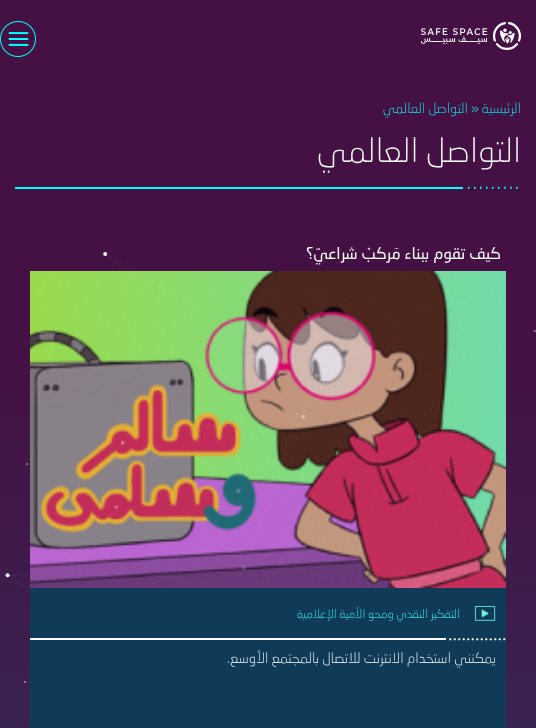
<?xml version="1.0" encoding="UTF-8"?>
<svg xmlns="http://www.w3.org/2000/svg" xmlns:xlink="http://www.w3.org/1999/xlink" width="536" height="728">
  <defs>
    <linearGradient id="g1" gradientUnits="userSpaceOnUse" x1="268" y1="0" x2="268" y2="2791"><stop offset="0.13" stop-color="#451144" /><stop offset="0.63" stop-color="#155577" /><stop offset="1" stop-color="#0f3a63" /></linearGradient>
  </defs>
  <rect width="100%" height="100%" fill="#ffffff" />
  <rect width="536" height="728" fill="url(#g1)" />
  <image x="421" y="22" width="100" height="28" xlink:href="image1.png" />
  <image x="0" y="21" width="36" height="36" xlink:href="image2.png" />
  <rect x="15" y="187" width="448" height="2" fill="#00ffff" />
  <image x="24" y="330" width="512" height="353" xlink:href="image6.png" />
  <image x="5" y="252" width="314" height="338" xlink:href="image5.png" />
  <image x="30" y="271" width="476" height="317" xlink:href="image3.png" />
  <rect x="30" y="588" width="476" height="140" fill="#0f3b59" />
  <image x="474" y="606" width="22" height="15" xlink:href="image4.png" />
  <rect x="30" y="638" width="416" height="2" fill="#ffffff" />
  <text x="521" y="113" style="font-family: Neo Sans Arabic; font-size: 14px; font-weight: 300; direction: rtl; fill: #00ffff">الرئيسية</text>
  <text x="471" y="113" style="font-family: Neo Sans Arabic; font-size: 14px; font-weight: 300; fill: #00ffff">»</text>
  <text x="468" y="113" style="font-family: Neo Sans Arabic; font-size: 14px; font-weight: 300; direction: rtl; fill: #00ffff">التواصل العالمي</text>
  <text x="521" y="162" style="font-family: Neo Sans Arabic; font-size: 33.5px; font-weight: 300; direction: rtl; fill: #ffffff">التواصل العالمي</text>
  <text x="467" y="189" style="font-family: Neo Sans Arabic; font-size: 18px; font-weight: bold; letter-spacing: 3px; fill: #00ffff">.........</text>
  <text x="501" y="259" style="font-family: Neo Sans Arabic; font-size: 16px; direction: rtl; fill: #ffffff">كيف تقوم ببناء مَركبْ شراعيّ؟</text>
  <text x="460" y="618" style="font-family: Neo Sans Arabic; font-size: 12px; font-weight: 300; direction: rtl; fill: #23ffff">التفكير النقدي ومحو الأمية الإعلامية</text>
  <text x="448" y="640" style="font-family: Liberation Serif; font-size: 18px; fill: #ffffff">.............</text>
  <text x="496" y="663" style="font-family: Neo Sans Arabic; font-size: 14.4px; font-weight: 300; direction: rtl; fill: #ffffff">يمكنني استخدام الانترنت للاتصال بالمجتمع الأوسع.</text>
</svg>
